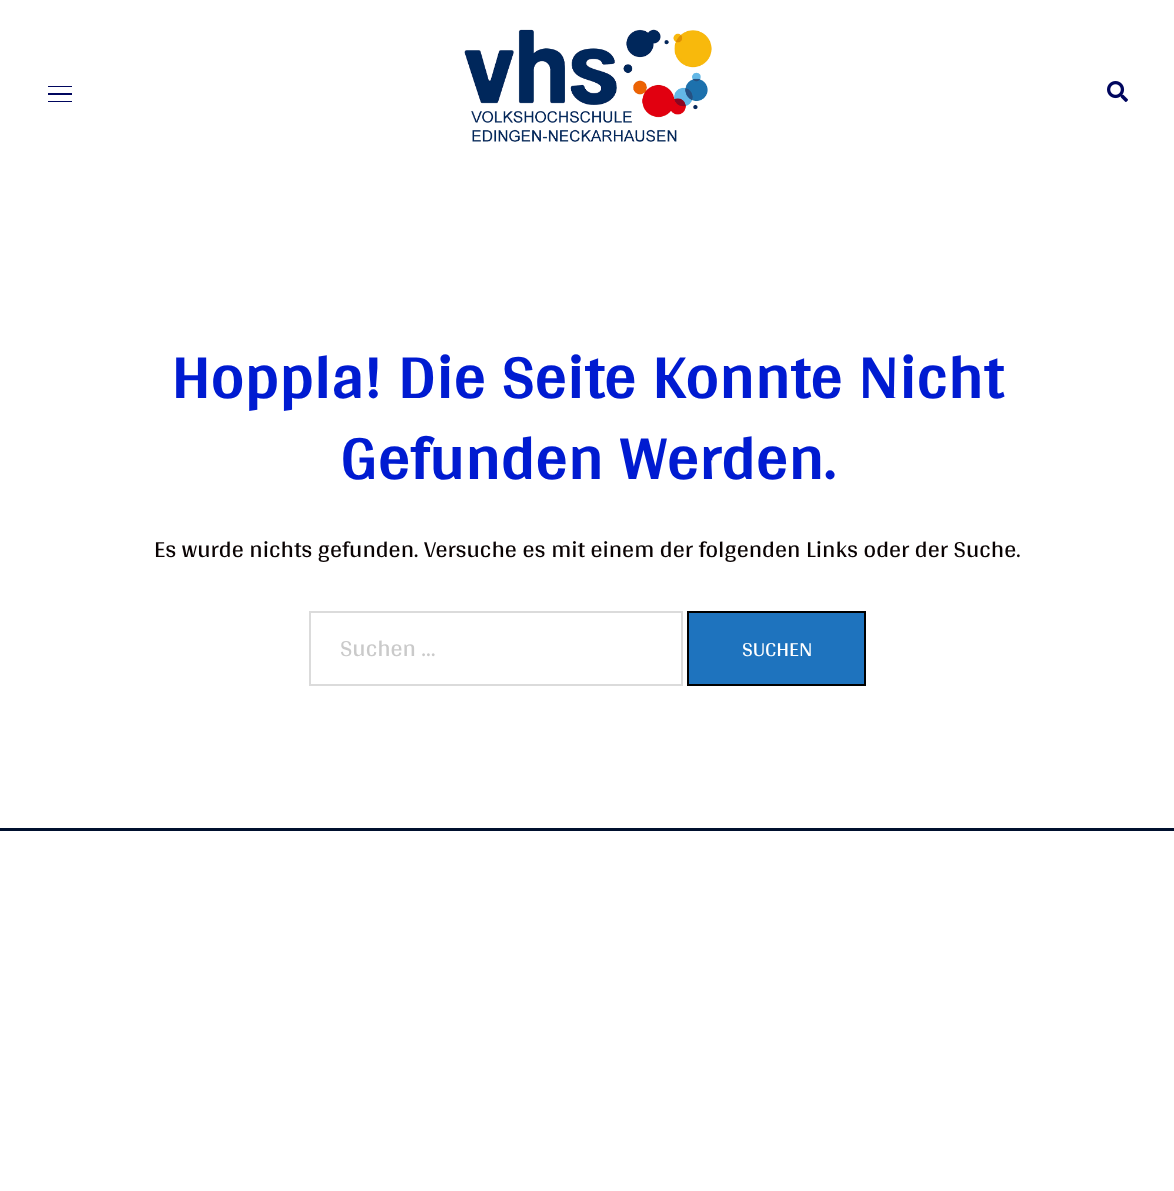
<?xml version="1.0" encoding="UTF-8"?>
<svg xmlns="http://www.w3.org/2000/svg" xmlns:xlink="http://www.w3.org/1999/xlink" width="1174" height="1191">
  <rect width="100%" height="100%" fill="#ffffff" />
  <rect x="48" y="86" width="24" height="1" fill="#00065e" />
  <rect x="48" y="93" width="24" height="2" fill="#00065e" />
  <rect x="48" y="101" width="24" height="1" fill="#00065e" />
  <image x="464" y="29" width="248" height="113" xlink:href="image1.png" />
  <image x="1107" y="81" width="21" height="21" xlink:href="image2.png" />
  <rect x="310" y="612" width="372" height="73" fill="none" stroke="#dbdbdb" stroke-width="2" />
  <rect x="688" y="612" width="177" height="73" fill="#1e73be" stroke="#000000" stroke-width="2" />
  <rect y="828" width="1174" height="3" fill="#00102e" />
  <text x="171" y="398" style="font-family: Arya; font-size: 63px; font-weight: bold; letter-spacing: 0.75px; fill: #001bd1">Hoppla! Die Seite Konnte Nicht</text>
  <text x="340" y="479" style="font-family: Arya; font-size: 63px; font-weight: bold; letter-spacing: 0.75px; fill: #001bd1">Gefunden Werden.</text>
  <text x="154" y="557" style="font-family: Arya; font-size: 24px; fill: #0a0303">Es wurde nichts gefunden. Versuche es mit einem der folgenden Links oder der Suche.</text>
  <text x="340" y="656" style="font-family: Arya; font-size: 24px; fill: #cacaca">Suchen …</text>
  <text x="742" y="656" style="font-family: Arya; font-size: 21px; fill: #ffffff">SUCHEN</text>
</svg>
